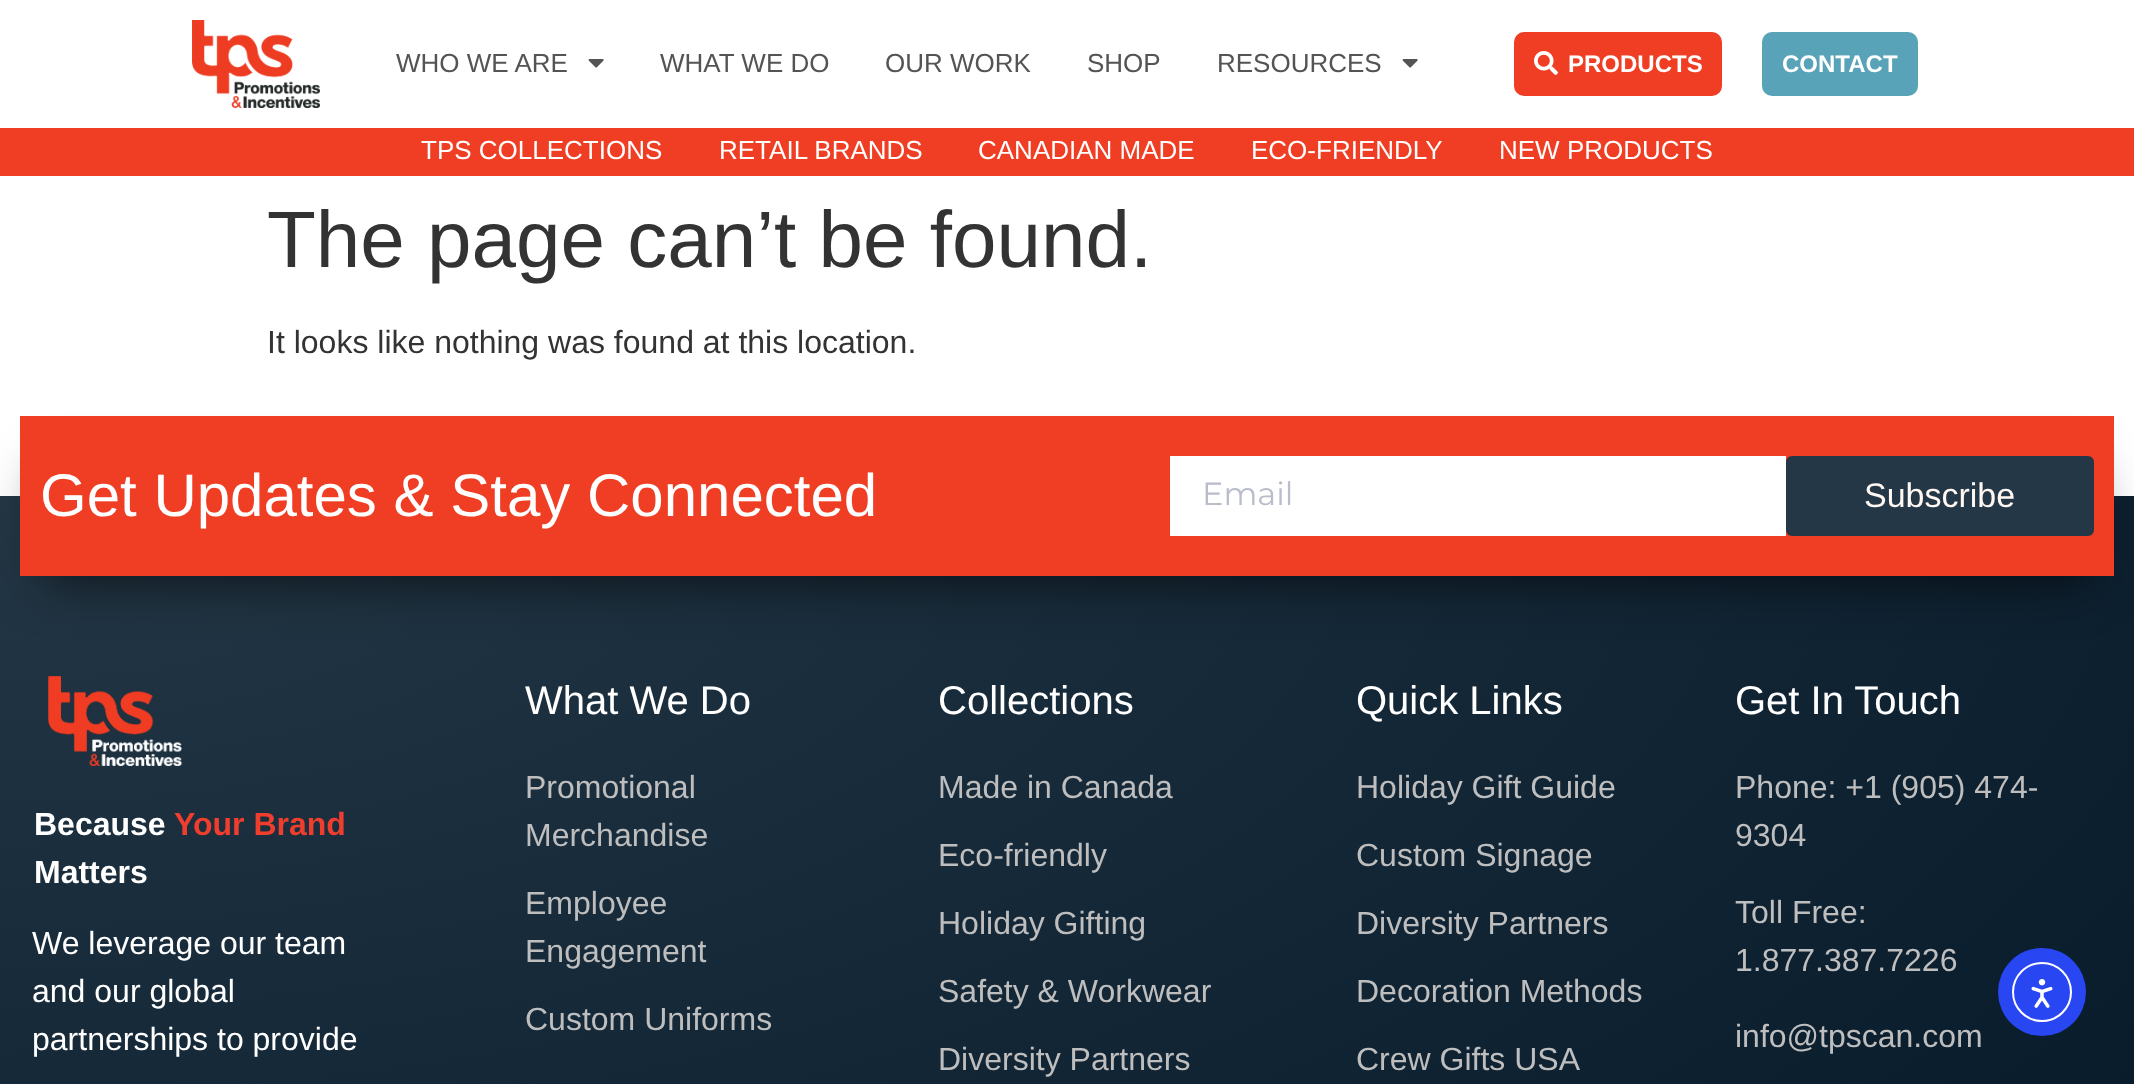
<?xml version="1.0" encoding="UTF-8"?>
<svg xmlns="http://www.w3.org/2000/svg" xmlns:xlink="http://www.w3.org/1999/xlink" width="2134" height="1084">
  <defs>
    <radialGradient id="g1" gradientUnits="userSpaceOnUse" cx="0" cy="0" r="1" gradientTransform="matrix(3018 0 0 1318 0 496)"><stop offset="0" stop-color="#243746" /><stop offset="1" stop-color="#041727" /></radialGradient>
  </defs>
  <rect width="100%" height="100%" fill="#ffffff" />
  <image x="192" y="20" width="128" height="88" xlink:href="image1.png" />
  <image x="588" y="59" width="16" height="9" xlink:href="image2.png" />
  <image x="1402" y="59" width="16" height="9" xlink:href="image2.png" />
  <rect x="1514" y="32" width="208" height="64" rx="10" fill="#ef3e23" />
  <image x="1534" y="51" width="24" height="24" xlink:href="image3.png" />
  <rect x="1762" y="32" width="156" height="64" rx="10" fill="#59a3b8" />
  <rect y="128" width="2134" height="48" fill="#ef3e23" />
  <rect y="496" width="2134" height="588" fill="url(#g1)" />
  <rect x="42" y="468" width="2050" height="116" fill="#000000" fill-opacity="0.55" filter="blur(25px)" />
  <rect x="20" y="416" width="2094" height="160" fill="#ef3e23" />
  <rect x="1170" y="456" width="616" height="80" fill="#ffffff" />
  <rect x="1786" y="456" width="308" height="80" rx="6" fill="#243746" />
  <image x="48" y="676" width="134" height="90" xlink:href="image4.png" />
  <circle cx="2042" cy="992" r="44" fill="#2847f3" />
  <circle cx="2042" cy="992" r="29" fill="none" stroke="#ffffff" stroke-width="2" />
  <image x="2031" y="979" width="22" height="29" xlink:href="image5.png" />
  <text x="396" y="72" style="font-family: Liberation Sans; font-size: 26px; fill: #545454">WHO WE ARE</text>
  <text x="660" y="72" style="font-family: Liberation Sans; font-size: 26px; fill: #545454">WHAT WE DO</text>
  <text x="885" y="72" style="font-family: Liberation Sans; font-size: 26px; fill: #545454">OUR WORK</text>
  <text x="1087" y="72" style="font-family: Liberation Sans; font-size: 26px; fill: #545454">SHOP</text>
  <text x="1217" y="72" style="font-family: Liberation Sans; font-size: 26px; fill: #545454">RESOURCES</text>
  <text x="1568" y="72" style="font-family: Liberation Sans; font-size: 24px; font-weight: bold; fill: #ffffff">PRODUCTS</text>
  <text x="1782" y="72" style="font-family: Liberation Sans; font-size: 24px; font-weight: bold; fill: #ffffff">CONTACT</text>
  <text x="421" y="159" style="font-family: Liberation Sans; font-size: 26px; fill: #ffffff">TPS COLLECTIONS</text>
  <text x="719" y="159" style="font-family: Liberation Sans; font-size: 26px; fill: #ffffff">RETAIL BRANDS</text>
  <text x="978" y="159" style="font-family: Liberation Sans; font-size: 26px; fill: #ffffff">CANADIAN MADE</text>
  <text x="1251" y="159" style="font-family: Liberation Sans; font-size: 26px; fill: #ffffff">ECO-FRIENDLY</text>
  <text x="1499" y="159" style="font-family: Liberation Sans; font-size: 26px; fill: #ffffff">NEW PRODUCTS</text>
  <text x="267" y="267" style="font-family: Liberation Sans; font-size: 80px; fill: #333333">The page can’t be found.</text>
  <text x="267" y="353" style="font-family: Liberation Sans; font-size: 32px; fill: #333333">It looks like nothing was found at this location.</text>
  <text x="40" y="516" style="font-family: Liberation Sans; font-size: 60px; fill: #ffffff">Get Updates &amp; Stay Connected</text>
  <text x="1202" y="505" style="font-family: Montserrat; font-size: 32px; fill: #b8bdc9">Email</text>
  <text x="1864" y="507" style="font-family: Liberation Sans; font-size: 34px; fill: #fff7f1">Subscribe</text>
  <text x="34" y="835" style="font-family: Liberation Sans; font-size: 32px; font-weight: bold; fill: #ffffff">Because</text>
  <text x="174" y="835" style="font-family: Liberation Sans; font-size: 32px; font-weight: bold; fill: #ef3e2e">Your Brand</text>
  <text x="34" y="883" style="font-family: Liberation Sans; font-size: 32px; font-weight: bold; fill: #ffffff">Matters</text>
  <text x="32" y="954" style="font-family: Liberation Sans; font-size: 32px; fill: #ffffff">We leverage our team</text>
  <text x="32" y="1002" style="font-family: Liberation Sans; font-size: 32px; fill: #ffffff">and our global</text>
  <text x="32" y="1050" style="font-family: Liberation Sans; font-size: 32px; fill: #ffffff">partnerships to provide</text>
  <text x="525" y="714" style="font-family: Liberation Sans; font-size: 40px; fill: #ffffff">What We Do</text>
  <text x="525" y="798" style="font-family: Liberation Sans; font-size: 32px; fill: #bebebe">Promotional</text>
  <text x="525" y="846" style="font-family: Liberation Sans; font-size: 32px; fill: #bebebe">Merchandise</text>
  <text x="525" y="914" style="font-family: Liberation Sans; font-size: 32px; fill: #bebebe">Employee</text>
  <text x="525" y="962" style="font-family: Liberation Sans; font-size: 32px; fill: #bebebe">Engagement</text>
  <text x="525" y="1030" style="font-family: Liberation Sans; font-size: 32px; fill: #bebebe">Custom Uniforms</text>
  <text x="938" y="714" style="font-family: Liberation Sans; font-size: 40px; fill: #ffffff">Collections</text>
  <text x="938" y="798" style="font-family: Liberation Sans; font-size: 32px; fill: #bebebe">Made in Canada</text>
  <text x="938" y="866" style="font-family: Liberation Sans; font-size: 32px; fill: #bebebe">Eco-friendly</text>
  <text x="938" y="934" style="font-family: Liberation Sans; font-size: 32px; fill: #bebebe">Holiday Gifting</text>
  <text x="938" y="1002" style="font-family: Liberation Sans; font-size: 32px; fill: #bebebe">Safety &amp; Workwear</text>
  <text x="938" y="1070" style="font-family: Liberation Sans; font-size: 32px; fill: #bebebe">Diversity Partners</text>
  <text x="1356" y="714" style="font-family: Liberation Sans; font-size: 40px; fill: #ffffff">Quick Links</text>
  <text x="1356" y="798" style="font-family: Liberation Sans; font-size: 32px; fill: #bebebe">Holiday Gift Guide</text>
  <text x="1356" y="866" style="font-family: Liberation Sans; font-size: 32px; fill: #bebebe">Custom Signage</text>
  <text x="1356" y="934" style="font-family: Liberation Sans; font-size: 32px; fill: #bebebe">Diversity Partners</text>
  <text x="1356" y="1002" style="font-family: Liberation Sans; font-size: 32px; fill: #bebebe">Decoration Methods</text>
  <text x="1356" y="1070" style="font-family: Liberation Sans; font-size: 32px; fill: #bebebe">Crew Gifts USA</text>
  <text x="1735" y="714" style="font-family: Liberation Sans; font-size: 40px; fill: #ffffff">Get In Touch</text>
  <text x="1735" y="798" style="font-family: Liberation Sans; font-size: 32px; fill: #bebebe">Phone: +1 (905) 474-</text>
  <text x="1735" y="846" style="font-family: Liberation Sans; font-size: 32px; fill: #bebebe">9304</text>
  <text x="1735" y="923" style="font-family: Liberation Sans; font-size: 32px; fill: #bebebe">Toll Free:</text>
  <text x="1735" y="971" style="font-family: Liberation Sans; font-size: 32px; fill: #bebebe">1.877.387.7226</text>
  <text x="1735" y="1047" style="font-family: Liberation Sans; font-size: 32px; fill: #bebebe">info@tpscan.com</text>
</svg>
